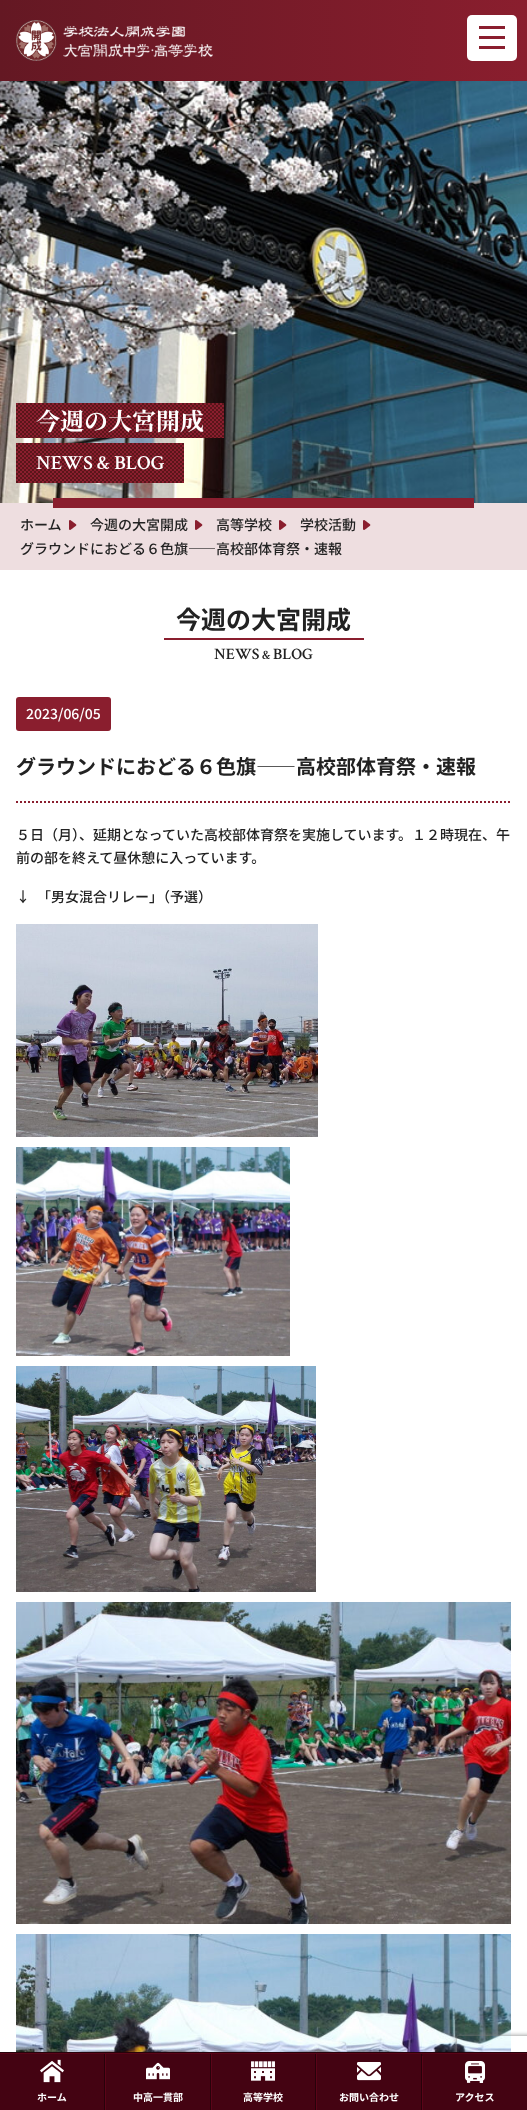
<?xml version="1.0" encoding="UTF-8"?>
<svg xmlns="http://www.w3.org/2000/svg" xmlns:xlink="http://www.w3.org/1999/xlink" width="527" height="2110">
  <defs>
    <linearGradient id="g1" gradientUnits="userSpaceOnUse" x1="0" y1="41" x2="527" y2="40"><stop offset="0" stop-color="#641823" /><stop offset="1" stop-color="#8a1e2e" /></linearGradient>
    <clipPath id="clip1"><path d="M 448 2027 h 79 v 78 h -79 z m 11 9 h 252 c 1 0 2 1 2 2 v 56 c 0 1 -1 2 -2 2 h -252 c -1 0 -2 -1 -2 -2 v -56 c 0 -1 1 -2 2 -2 z" clip-rule="evenodd" /></clipPath>
    <clipPath id="clip2"><rect x="16" y="823" width="495" height="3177" /></clipPath>
  </defs>
  <rect width="100%" height="100%" fill="#ffffff" />
  <rect width="527" height="81" fill="url(#g1)" />
  <image x="16" y="20" width="197" height="41" xlink:href="image1.png" />
  <rect x="467" y="15" width="50" height="46" rx="5" fill="#ffffff" />
  <rect x="479" y="36" width="26" height="3" fill="#8a1e2e" />
  <rect x="479" y="26" width="26" height="3" fill="#8a1e2e" />
  <rect x="479" y="46" width="26" height="3" fill="#8a1e2e" />
  <image x="0" y="81" width="527" height="422" xlink:href="image2.png" />
  <rect x="16" y="403" width="208" height="35" fill="#5a151a" />
  <image x="16" y="403" width="208" height="35" xlink:href="image3.png" />
  <rect x="16" y="443" width="168" height="40" fill="#5a151a" />
  <image x="16" y="443" width="168" height="40" xlink:href="image4.png" />
  <rect y="503" width="527" height="67" fill="#eedee0" />
  <rect x="53" y="498" width="421" height="10" fill="#8a1e2e" />
  <image x="69" y="520" width="8" height="10" xlink:href="image5.png" />
  <image x="195" y="520" width="8" height="10" xlink:href="image5.png" />
  <image x="279" y="520" width="8" height="10" xlink:href="image5.png" />
  <image x="363" y="520" width="8" height="10" xlink:href="image5.png" />
  <rect x="164" y="638" width="200" height="2" fill="#8a1e2e" />
  <rect x="16" y="697" width="95" height="34" rx="3" fill="#8a1e2e" />
  <path d="M 16 802 h 495" fill="none" stroke="#8a1e2e" stroke-width="2" stroke-dasharray="2 2" />
  <image x="16" y="924" width="302" height="213" xlink:href="image6.png" />
  <image x="16" y="1147" width="274" height="209" xlink:href="image7.png" />
  <image x="16" y="1366" width="300" height="226" xlink:href="image8.png" />
  <image x="16" y="1602" width="495" height="322" xlink:href="image9.png" />
  <image x="16" y="1934" width="495" height="118" xlink:href="image10.png" />
  <g clip-path="url(#clip1)">
    <rect x="457" y="2036" width="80" height="60" rx="2" fill="#808080" filter="blur(2.5px)" />
  </g>
  <rect y="2054" width="527" height="56" fill="#440312" />
  <rect y="2052" width="527" height="1" fill="#27020a" />
  <rect y="2053" width="527" height="1" fill="#5a0418" />
  <rect x="104" y="2054" width="1" height="56" fill="#27020a" />
  <image x="40" y="2059" width="24" height="24" xlink:href="image11.png" />
  <rect x="210" y="2054" width="1" height="56" fill="#27020a" />
  <rect x="105" y="2054" width="1" height="56" fill="#5a0418" />
  <image x="146" y="2062" width="24" height="18" xlink:href="image12.png" />
  <rect x="315" y="2054" width="1" height="56" fill="#27020a" />
  <rect x="211" y="2054" width="1" height="56" fill="#5a0418" />
  <image x="251" y="2061" width="24" height="20" xlink:href="image13.png" />
  <rect x="421" y="2054" width="1" height="56" fill="#27020a" />
  <rect x="316" y="2054" width="1" height="56" fill="#5a0418" />
  <image x="357" y="2062" width="24" height="19" xlink:href="image14.png" />
  <rect x="422" y="2056" width="1" height="54" fill="#5a0418" />
  <image x="465" y="2061" width="20" height="22" xlink:href="image15.png" />
  <text x="36" y="430" style="font-family: Noto Serif JP; font-size: 24px; font-weight: bold; fill: #ffffff">今週の大宮開成</text>
  <text x="36" y="469" style="font-family: Crimson Text; font-size: 20px; font-weight: 600; fill: #ffffff">NEWS &amp; BLOG</text>
  <text x="20" y="530" style="font-family: Noto Sans JP; font-size: 14px; font-weight: 500; fill: #222222">ホーム</text>
  <text x="90" y="530" style="font-family: Noto Sans JP; font-size: 14px; font-weight: 500; fill: #222222">今週の大宮開成</text>
  <text x="216" y="530" style="font-family: Noto Sans JP; font-size: 14px; font-weight: 500; fill: #222222">高等学校</text>
  <text x="300" y="530" style="font-family: Noto Sans JP; font-size: 14px; font-weight: 500; fill: #222222">学校活動</text>
  <text x="20" y="554" style="font-family: Noto Sans JP; font-size: 14px; font-weight: 500; fill: #222222">グラウンドにおどる６色旗――高校部体育祭・速報</text>
  <text x="176" y="629" style="font-family: Noto Sans JP; font-size: 25px; font-weight: bold; fill: #222222">今週の大宮開成</text>
  <text x="214" y="659" style="font-family: Crimson Text; font-size: 16px; font-weight: 600; fill: #222222">NEWS</text>
  <text x="262" y="659" style="font-family: Crimson Text; font-size: 13px; font-weight: 600; fill: #222222">&amp;</text>
  <text x="273" y="659" style="font-family: Crimson Text; font-size: 16px; font-weight: 600; fill: #222222">BLOG</text>
  <text x="26" y="719" style="font-family: Noto Sans JP; font-size: 14px; font-weight: 500; fill: #ffffff">2023/06/05</text>
  <text x="16" y="774" style="font-family: Noto Sans JP; font-size: 20px; font-weight: bold; fill: #222222">グラウンドにおどる６色旗――高校部体育祭・速報</text>
  <g clip-path="url(#clip2)">
    <text x="16" y="840" style="font-family: Noto Sans JP; font-size: 14px; font-weight: 500; fill: #222222">５日（月）、延期となっていた高校部体育祭を実施しています。１２時現在、午</text>
  </g>
  <text x="16" y="863" style="font-family: Noto Sans JP; font-size: 14px; font-weight: 500; fill: #222222">前の部を終えて昼休憩に入っています。</text>
  <text x="16" y="902" style="font-family: Noto Sans JP; font-size: 14px; font-weight: 500; fill: #222222">↓　「男女混合リレー」（予選）</text>
  <text x="37" y="2101" style="font-family: Noto Sans JP; font-size: 10px; font-weight: bold; fill: #ffffff">ホーム</text>
  <text x="133" y="2101" style="font-family: Noto Sans JP; font-size: 10px; font-weight: bold; fill: #ffffff">中高一貫部</text>
  <text x="243" y="2101" style="font-family: Noto Sans JP; font-size: 10px; font-weight: bold; fill: #ffffff">高等学校</text>
  <text x="339" y="2101" style="font-family: Noto Sans JP; font-size: 10px; font-weight: bold; fill: #ffffff">お問い合わせ</text>
  <text x="455" y="2101" style="font-family: Noto Sans JP; font-size: 10px; font-weight: bold; fill: #ffffff">アクセス</text>
</svg>
